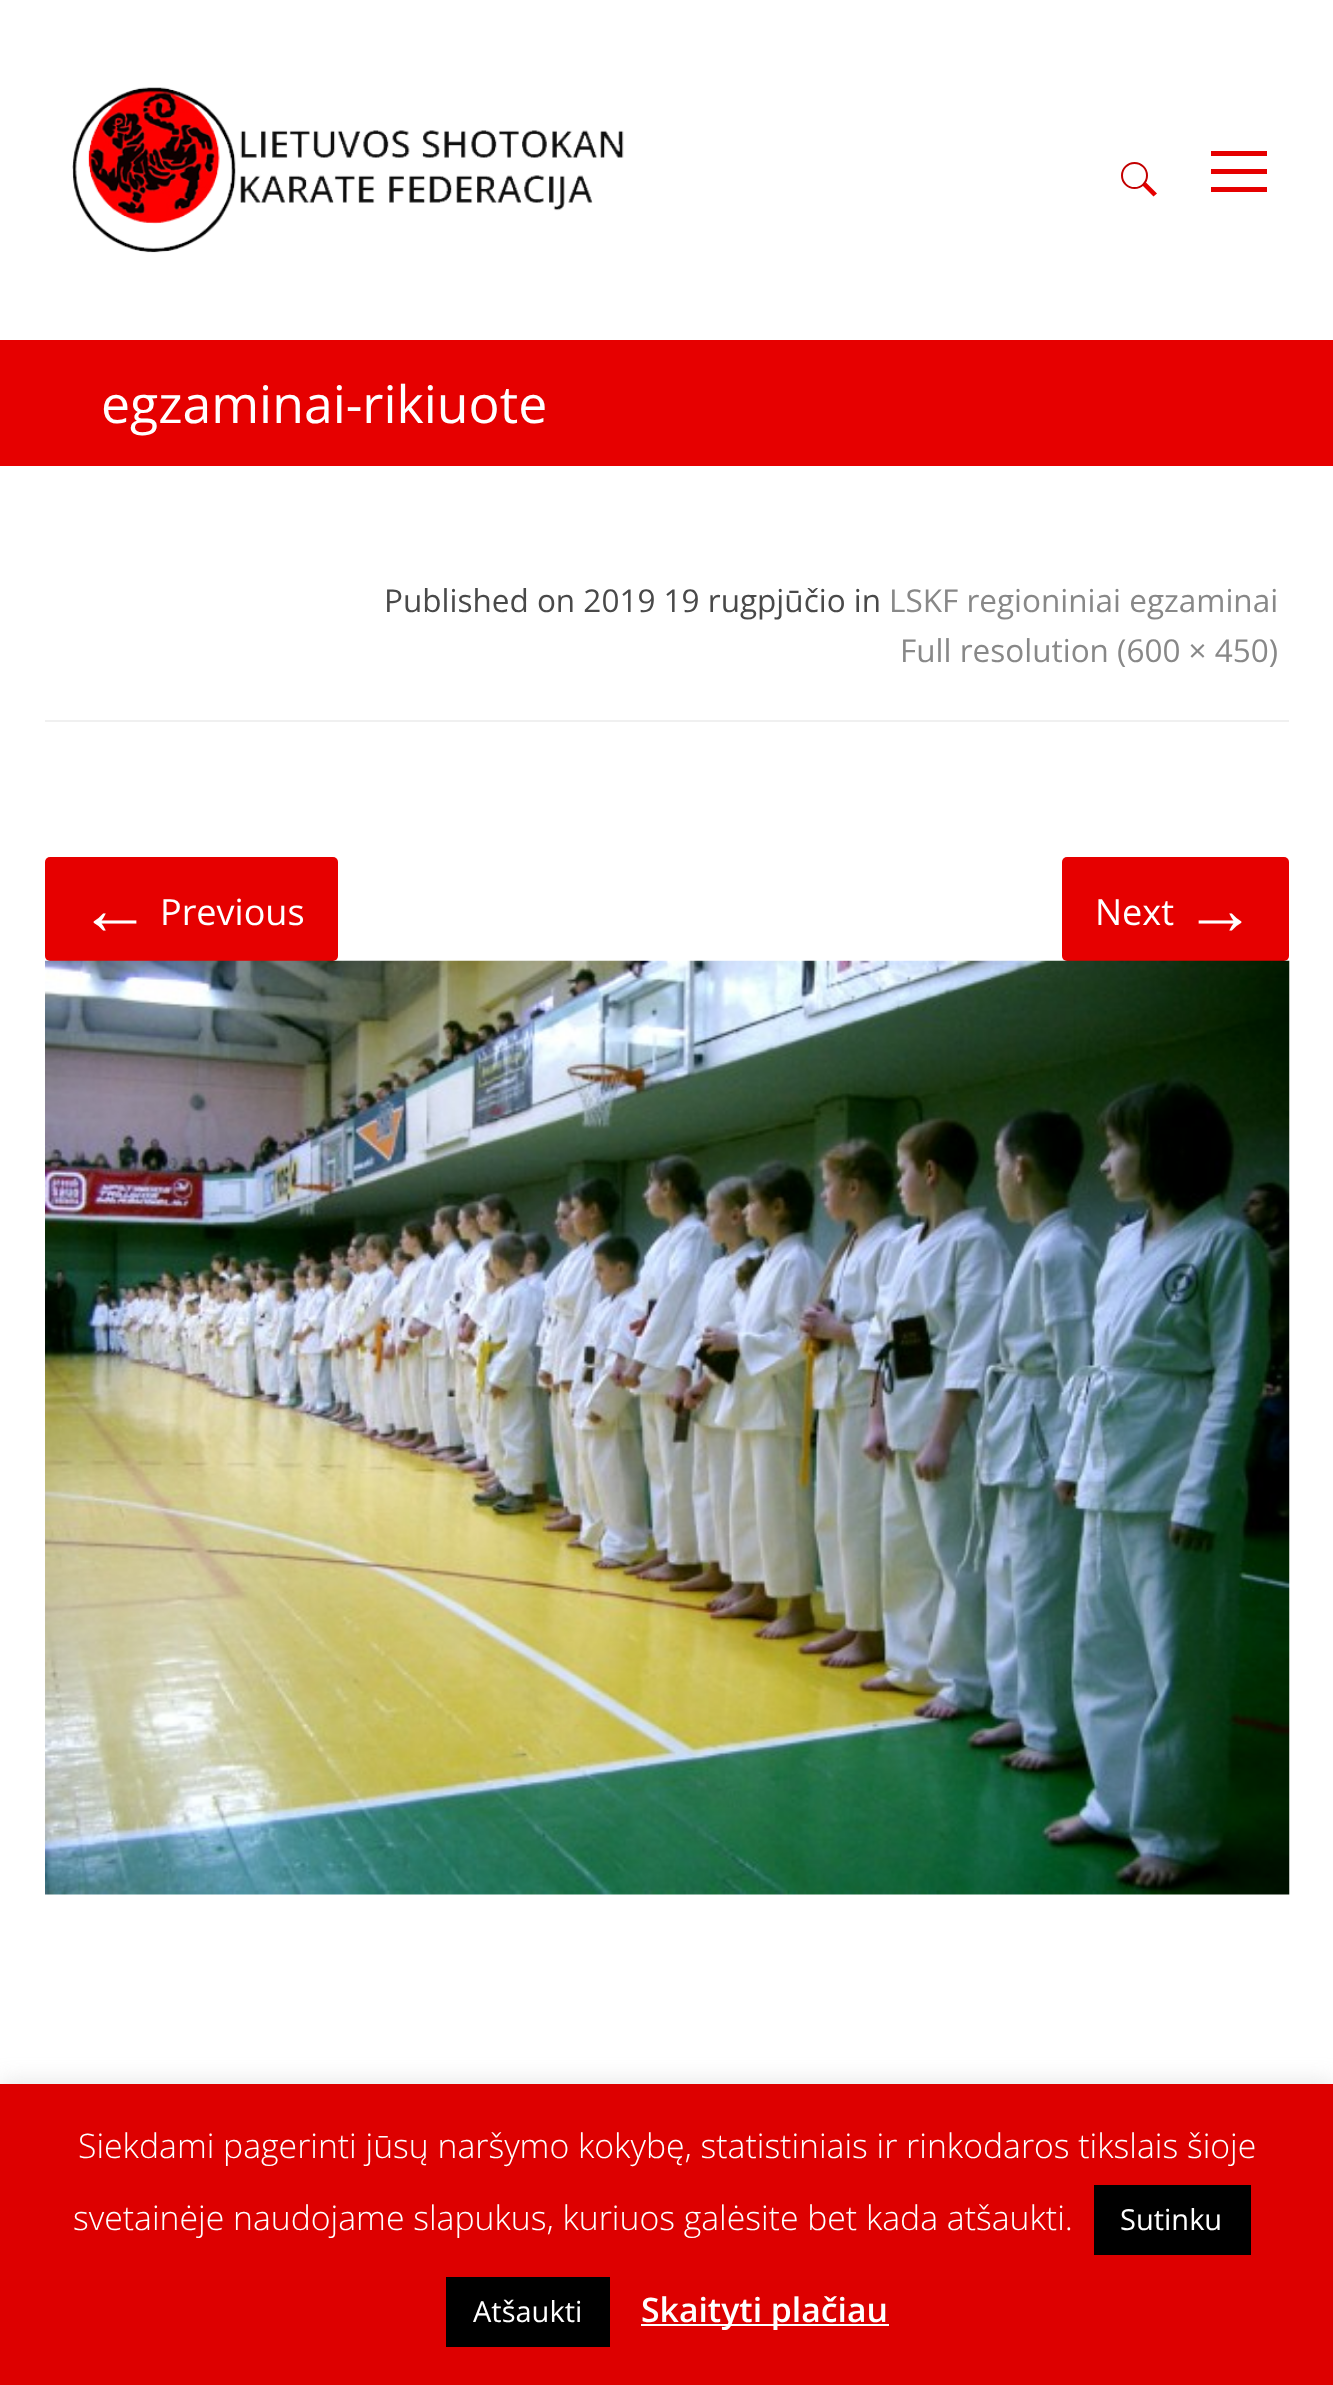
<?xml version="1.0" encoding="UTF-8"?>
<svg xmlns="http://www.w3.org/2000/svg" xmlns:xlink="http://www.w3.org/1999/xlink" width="1333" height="2385">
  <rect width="100%" height="100%" fill="#ffffff" />
  <image x="72" y="87" width="552" height="166" xlink:href="image1.png" />
  <path d="M 1142.5 185.5 l 3.5 -3 l 11 11 l -3.5 3 z" fill="#e60000" />
  <circle cx="1134.5" cy="175.5" r="12.5" fill="none" stroke="#c30000" stroke-width="2" />
  <rect x="1211" y="151" width="56" height="5" fill="#e60000" />
  <rect x="1211" y="169" width="56" height="5" fill="#e60000" />
  <rect x="1211" y="187" width="56" height="5" fill="#e60000" />
  <rect y="340" width="1333" height="126" fill="#e60000" />
  <rect x="45" y="720" width="1244" height="2" fill="#f0f0f0" />
  <rect x="45" y="857" width="293" height="104" rx="5" fill="#e60000" />
  <rect x="1062" y="857" width="227" height="104" rx="5" fill="#e60000" />
  <image x="45" y="960" width="1245" height="935" xlink:href="image2.png" />
  <rect y="2081" width="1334" height="302" fill="#acabab" fill-opacity="0.3" filter="blur(11px)" />
  <rect y="2084" width="1333" height="301" fill="#dd0000" />
  <rect x="1094" y="2185" width="157" height="70" fill="#000000" />
  <rect x="446" y="2277" width="164" height="70" fill="#000000" />
  <rect x="641" y="2324" width="248" height="2" fill="#ffffff" />
  <text x="101" y="423" style="font-family: Open Sans; font-size: 51.75px; fill: #ffffff">egzaminai-rikiuote</text>
  <text x="384" y="612" style="font-family: Open Sans; font-size: 31.5px; fill: #494949">Published on 2019 19 rugpjūčio in</text>
  <text x="889" y="612" style="font-family: Open Sans; font-size: 31.5px; fill: #888888">LSKF regioniniai egzaminai</text>
  <text x="900" y="662" style="font-family: Open Sans; font-size: 31.5px; fill: #888888">Full resolution (600 × 450)</text>
  <text x="79" y="934" style="font-family: Liberation Serif; font-size: 72px; fill: #ffffff">←</text>
  <text x="160" y="925" style="font-family: Open Sans; font-size: 36px; fill: #ffffff">Previous</text>
  <text x="1095" y="925" style="font-family: Open Sans; font-size: 36px; fill: #ffffff">Next</text>
  <text x="1184" y="934" style="font-family: Liberation Serif; font-size: 72px; fill: #ffffff">→</text>
  <text x="78" y="2158" style="font-family: Open Sans; font-size: 33.75px; font-weight: 300; fill: #ffffff">Siekdami pagerinti jūsų naršymo kokybę, statistiniais ir rinkodaros tikslais šioje</text>
  <text x="73" y="2230" style="font-family: Open Sans; font-size: 33.75px; font-weight: 300; fill: #ffffff">svetainėje naudojame slapukus, kuriuos galėsite bet kada atšaukti.</text>
  <text x="1120" y="2230" style="font-family: Open Sans; font-size: 29px; fill: #ffffff">Sutinku</text>
  <text x="473" y="2322" style="font-family: Open Sans; font-size: 29px; fill: #ffffff">Atšaukti</text>
  <text x="641" y="2322" style="font-family: Open Sans; font-size: 33.75px; font-weight: 600; fill: #ffffff">Skaityti plačiau</text>
</svg>
